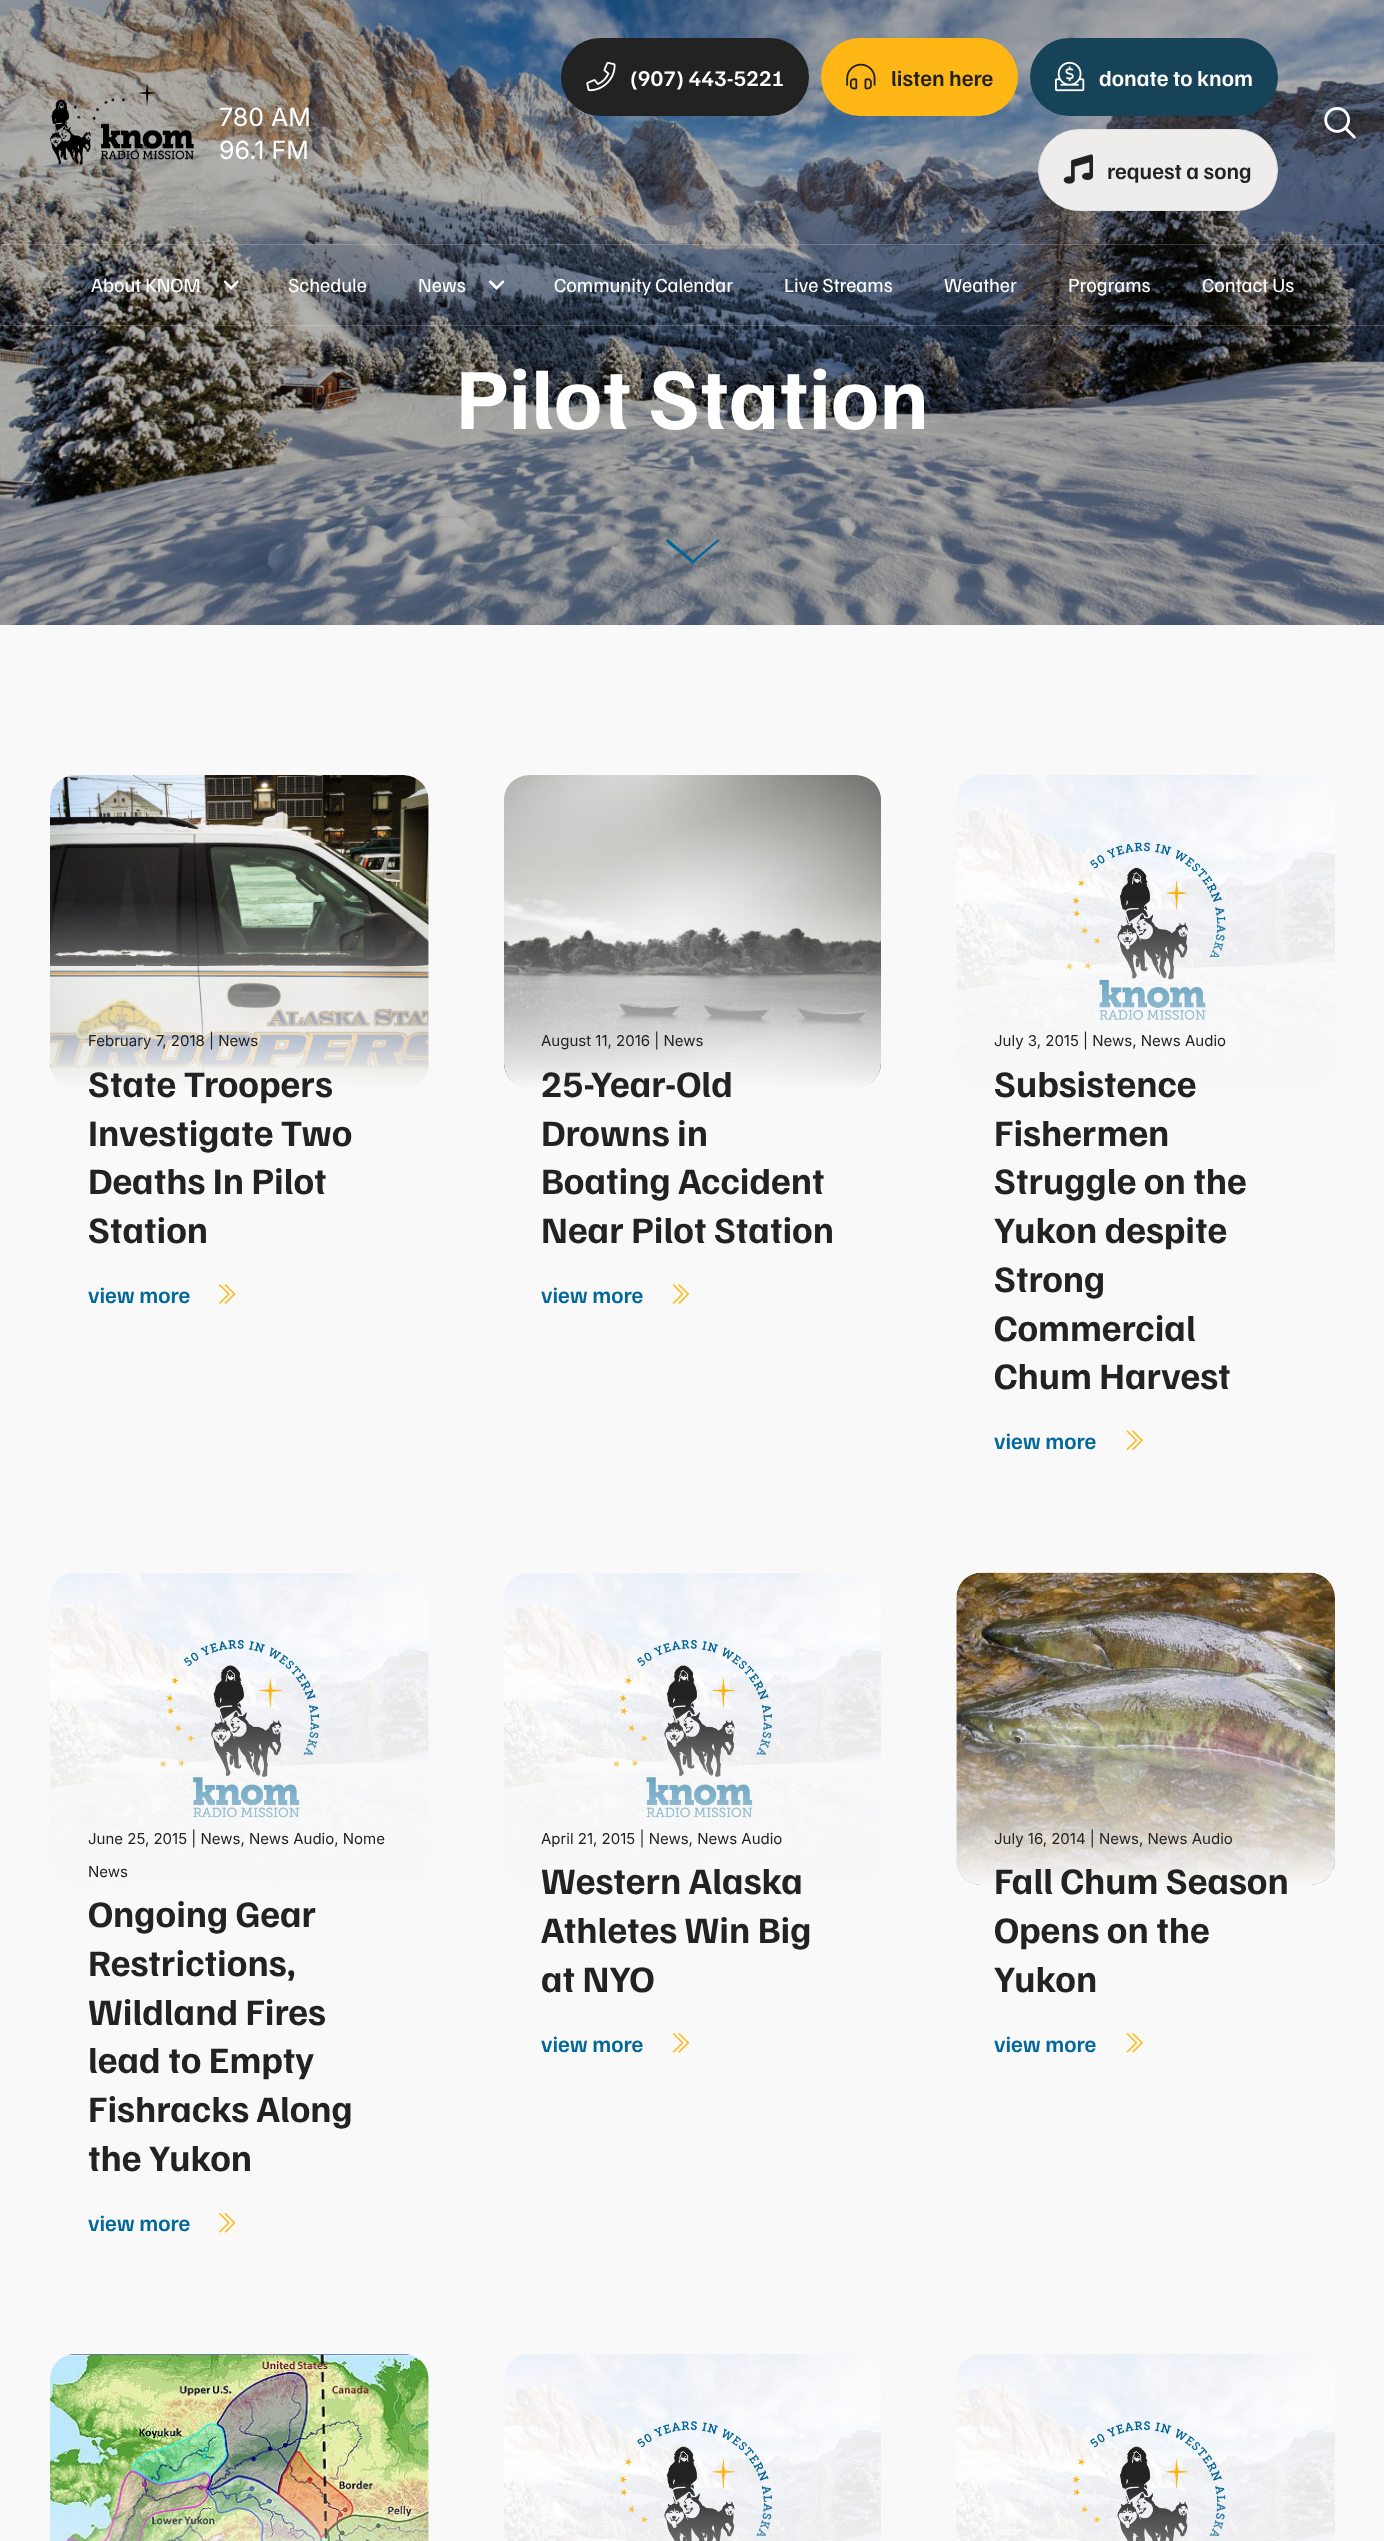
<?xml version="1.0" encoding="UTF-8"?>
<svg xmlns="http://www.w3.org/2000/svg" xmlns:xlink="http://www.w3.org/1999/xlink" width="1384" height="2541">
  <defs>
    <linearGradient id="g1" gradientUnits="userSpaceOnUse" x1="239" y1="775" x2="239" y2="1088"><stop offset="0.4" stop-color="#f8f8f8" stop-opacity="0" /><stop offset="1" stop-color="#f8f8f8" /></linearGradient>
    <linearGradient id="g2" gradientUnits="userSpaceOnUse" x1="693" y1="775" x2="693" y2="1088"><stop offset="0.4" stop-color="#f8f8f8" stop-opacity="0" /><stop offset="1" stop-color="#f8f8f8" /></linearGradient>
    <linearGradient id="g3" gradientUnits="userSpaceOnUse" x1="1146" y1="775" x2="1146" y2="1088"><stop offset="0.4" stop-color="#f8f8f8" stop-opacity="0" /><stop offset="1" stop-color="#f8f8f8" /></linearGradient>
    <linearGradient id="g4" gradientUnits="userSpaceOnUse" x1="239" y1="1573" x2="239" y2="1885"><stop offset="0.4" stop-color="#f8f8f8" stop-opacity="0" /><stop offset="1" stop-color="#f8f8f8" /></linearGradient>
    <linearGradient id="g5" gradientUnits="userSpaceOnUse" x1="693" y1="1573" x2="693" y2="1885"><stop offset="0.4" stop-color="#f8f8f8" stop-opacity="0" /><stop offset="1" stop-color="#f8f8f8" /></linearGradient>
    <linearGradient id="g6" gradientUnits="userSpaceOnUse" x1="1146" y1="1573" x2="1146" y2="1885"><stop offset="0.4" stop-color="#f8f8f8" stop-opacity="0" /><stop offset="1" stop-color="#f8f8f8" /></linearGradient>
    <linearGradient id="g7" gradientUnits="userSpaceOnUse" x1="239" y1="2354" x2="239" y2="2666"><stop offset="0.4" stop-color="#f8f8f8" stop-opacity="0" /><stop offset="1" stop-color="#f8f8f8" /></linearGradient>
    <linearGradient id="g8" gradientUnits="userSpaceOnUse" x1="693" y1="2354" x2="693" y2="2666"><stop offset="0.4" stop-color="#f8f8f8" stop-opacity="0" /><stop offset="1" stop-color="#f8f8f8" /></linearGradient>
    <linearGradient id="g9" gradientUnits="userSpaceOnUse" x1="1146" y1="2354" x2="1146" y2="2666"><stop offset="0.4" stop-color="#f8f8f8" stop-opacity="0" /><stop offset="1" stop-color="#f8f8f8" /></linearGradient>
  </defs>
  <rect width="100%" height="100%" fill="#ffffff" />
  <image x="0" y="0" width="1384" height="625" xlink:href="image7.png" />
  <image x="50" y="84" width="144" height="81" xlink:href="image1.png" />
  <rect x="561" y="38" width="248" height="78" rx="39" fill="#222222" />
  <image x="586" y="61" width="30" height="31" xlink:href="image2.png" />
  <rect x="821" y="38" width="197" height="78" rx="39" fill="#ffb715" />
  <image x="846" y="63" width="30" height="27" xlink:href="image3.png" />
  <rect x="1030" y="38" width="248" height="78" rx="39" fill="#174359" />
  <image x="1055" y="61" width="30" height="31" xlink:href="image4.png" />
  <rect x="1038.5" y="129.5" width="239" height="81" rx="40.5" fill="#eeedeb" stroke="#e2e1df" />
  <image x="1063" y="154" width="30" height="30" xlink:href="image5.png" />
  <image x="1324" y="107" width="32" height="32" xlink:href="image6.png" />
  <rect y="244" width="1384" height="1" fill="#ffffff" fill-opacity="0.2" />
  <rect y="325" width="1384" height="1" fill="#ffffff" fill-opacity="0.2" />
  <path d="M 237.5 280 l 1.5 2 l -8 8 l -1.5 -2 z" fill="#ffffff" />
  <path d="M 225 280 l 8 8 l -2 2 l -7.5 -8 z" fill="#ffffff" />
  <path d="M 503 280 l 1.5 2 l -8 8 l -1.5 -2 z" fill="#ffffff" />
  <path d="M 490.5 280 l 8 8 l -2 2 l -8 -8 z" fill="#ffffff" />
  <path d="M 666 541 c 0 -1 1 -2 2 -2 l 25 21 l 24 -20 c 1 -1 3 0 2 1 l -21 18 c -6 6 -4 6 -11 0 l -8 -7 c -2 -1 -13 -10 -13 -11 z" fill="#02679a" />
  <rect y="625" width="1384" height="1916" fill="#f9f9f9" />
  <image x="50" y="775" width="379" height="313" xlink:href="image8.png" />
  <rect x="50" y="775" width="379" height="313" rx="25" fill="url(#g1)" />
  <image x="219" y="1284" width="17" height="20" xlink:href="image9.png" />
  <image x="504" y="775" width="377" height="313" xlink:href="image10.png" />
  <rect x="504" y="775" width="377" height="313" rx="25" fill="url(#g2)" />
  <image x="672" y="1284" width="17" height="20" xlink:href="image11.png" />
  <image x="956" y="775" width="379" height="312" xlink:href="image12.png" />
  <rect x="956" y="775" width="379" height="313" rx="25" fill="url(#g3)" />
  <image x="1126" y="1430" width="17" height="21" xlink:href="image13.png" />
  <image x="50" y="1573" width="379" height="312" xlink:href="image14.png" />
  <rect x="50" y="1573" width="379" height="312" rx="25" fill="url(#g4)" />
  <image x="219" y="2213" width="17" height="20" xlink:href="image15.png" />
  <image x="504" y="1573" width="377" height="312" xlink:href="image16.png" />
  <rect x="504" y="1573" width="377" height="312" rx="25" fill="url(#g5)" />
  <image x="672" y="2033" width="18" height="20" xlink:href="image17.png" />
  <image x="956" y="1572" width="379" height="313" xlink:href="image18.png" />
  <rect x="956" y="1573" width="379" height="312" rx="25" fill="url(#g6)" />
  <image x="1126" y="2033" width="17" height="20" xlink:href="image19.png" />
  <image x="50" y="2354" width="379" height="187" xlink:href="image20.png" />
  <rect x="50" y="2483" width="379" height="58" fill="url(#g7)" />
  <image x="504" y="2354" width="377" height="187" xlink:href="image21.png" />
  <rect x="504" y="2483" width="377" height="58" fill="url(#g8)" />
  <image x="956" y="2354" width="379" height="187" xlink:href="image22.png" />
  <rect x="957" y="2483" width="378" height="58" fill="url(#g9)" />
  <text x="219" y="126" style="font-family: Inter; font-size: 25px; fill: #ffffff">780 AM</text>
  <text x="219" y="159" style="font-family: Inter; font-size: 25px; fill: #ffffff">96.1 FM</text>
  <text x="630" y="86" style="font-family: Familjen Grotesk; font-size: 22.5px; font-weight: 600; fill: #ffffff">(907) 443-5221</text>
  <text x="891" y="86" style="font-family: Familjen Grotesk; font-size: 22.5px; font-weight: 600; fill: #222222">listen here</text>
  <text x="1099" y="86" style="font-family: Familjen Grotesk; font-size: 22.5px; font-weight: 600; fill: #ffffff">donate to knom</text>
  <text x="1107" y="179" style="font-family: Familjen Grotesk; font-size: 22.5px; font-weight: 600; fill: #222222">request a song</text>
  <text x="91" y="292" style="font-family: Familjen Grotesk; font-size: 20px; fill: #ffffff">About KNOM</text>
  <text x="288" y="292" style="font-family: Familjen Grotesk; font-size: 20px; fill: #ffffff">Schedule</text>
  <text x="418" y="292" style="font-family: Familjen Grotesk; font-size: 20px; fill: #ffffff">News</text>
  <text x="554" y="292" style="font-family: Familjen Grotesk; font-size: 20px; fill: #ffffff">Community Calendar</text>
  <text x="784" y="292" style="font-family: Familjen Grotesk; font-size: 20px; fill: #ffffff">Live Streams</text>
  <text x="944" y="292" style="font-family: Familjen Grotesk; font-size: 20px; fill: #ffffff">Weather</text>
  <text x="1068" y="292" style="font-family: Familjen Grotesk; font-size: 20px; fill: #ffffff">Programs</text>
  <text x="1202" y="292" style="font-family: Familjen Grotesk; font-size: 20px; fill: #ffffff">Contact Us</text>
  <text x="456" y="429" style="font-family: Familjen Grotesk; font-size: 87.5px; font-weight: bold; fill: #ffffff">Pilot Station</text>
  <text x="88" y="1046" style="font-family: Inter; font-size: 15px; fill: #222222">February 7, 2018 | News</text>
  <text x="88" y="1097" style="font-family: Familjen Grotesk; font-size: 37.5px; font-weight: bold; fill: #222222">State Troopers</text>
  <text x="88" y="1146" style="font-family: Familjen Grotesk; font-size: 37.5px; font-weight: bold; fill: #222222">Investigate Two</text>
  <text x="88" y="1194" style="font-family: Familjen Grotesk; font-size: 37.5px; font-weight: bold; fill: #222222">Deaths In Pilot</text>
  <text x="88" y="1243" style="font-family: Familjen Grotesk; font-size: 37.5px; font-weight: bold; fill: #222222">Station</text>
  <text x="88" y="1303" style="font-family: Familjen Grotesk; font-size: 22.5px; font-weight: 600; fill: #02679a">view more</text>
  <text x="541" y="1046" style="font-family: Inter; font-size: 15px; fill: #222222">August 11, 2016 | News</text>
  <text x="541" y="1097" style="font-family: Familjen Grotesk; font-size: 37.5px; font-weight: bold; fill: #222222">25-Year-Old</text>
  <text x="541" y="1146" style="font-family: Familjen Grotesk; font-size: 37.5px; font-weight: bold; fill: #222222">Drowns in</text>
  <text x="541" y="1194" style="font-family: Familjen Grotesk; font-size: 37.5px; font-weight: bold; fill: #222222">Boating Accident</text>
  <text x="541" y="1243" style="font-family: Familjen Grotesk; font-size: 37.5px; font-weight: bold; fill: #222222">Near Pilot Station</text>
  <text x="541" y="1303" style="font-family: Familjen Grotesk; font-size: 22.5px; font-weight: 600; fill: #02679a">view more</text>
  <text x="994" y="1046" style="font-family: Inter; font-size: 15px; fill: #222222">July 3, 2015 | News, News Audio</text>
  <text x="994" y="1097" style="font-family: Familjen Grotesk; font-size: 37.5px; font-weight: bold; fill: #222222">Subsistence</text>
  <text x="994" y="1146" style="font-family: Familjen Grotesk; font-size: 37.5px; font-weight: bold; fill: #222222">Fishermen</text>
  <text x="994" y="1194" style="font-family: Familjen Grotesk; font-size: 37.5px; font-weight: bold; fill: #222222">Struggle on the</text>
  <text x="994" y="1243" style="font-family: Familjen Grotesk; font-size: 37.5px; font-weight: bold; fill: #222222">Yukon despite</text>
  <text x="994" y="1292" style="font-family: Familjen Grotesk; font-size: 37.5px; font-weight: bold; fill: #222222">Strong</text>
  <text x="994" y="1341" style="font-family: Familjen Grotesk; font-size: 37.5px; font-weight: bold; fill: #222222">Commercial</text>
  <text x="994" y="1389" style="font-family: Familjen Grotesk; font-size: 37.5px; font-weight: bold; fill: #222222">Chum Harvest</text>
  <text x="994" y="1449" style="font-family: Familjen Grotesk; font-size: 22.5px; font-weight: 600; fill: #02679a">view more</text>
  <text x="88" y="1844" style="font-family: Inter; font-size: 15px; fill: #222222">June 25, 2015 | News, News Audio, Nome</text>
  <text x="88" y="1877" style="font-family: Inter; font-size: 15px; fill: #222222">News</text>
  <text x="88" y="1927" style="font-family: Familjen Grotesk; font-size: 37.5px; font-weight: bold; fill: #222222">Ongoing Gear</text>
  <text x="88" y="1976" style="font-family: Familjen Grotesk; font-size: 37.5px; font-weight: bold; fill: #222222">Restrictions,</text>
  <text x="88" y="2025" style="font-family: Familjen Grotesk; font-size: 37.5px; font-weight: bold; fill: #222222">Wildland Fires</text>
  <text x="88" y="2073" style="font-family: Familjen Grotesk; font-size: 37.5px; font-weight: bold; fill: #222222">lead to Empty</text>
  <text x="88" y="2122" style="font-family: Familjen Grotesk; font-size: 37.5px; font-weight: bold; fill: #222222">Fishracks Along</text>
  <text x="88" y="2171" style="font-family: Familjen Grotesk; font-size: 37.5px; font-weight: bold; fill: #222222">the Yukon</text>
  <text x="88" y="2231" style="font-family: Familjen Grotesk; font-size: 22.5px; font-weight: 600; fill: #02679a">view more</text>
  <text x="541" y="1844" style="font-family: Inter; font-size: 15px; fill: #222222">April 21, 2015 | News, News Audio</text>
  <text x="541" y="1894" style="font-family: Familjen Grotesk; font-size: 37.5px; font-weight: bold; fill: #222222">Western Alaska</text>
  <text x="541" y="1943" style="font-family: Familjen Grotesk; font-size: 37.5px; font-weight: bold; fill: #222222">Athletes Win Big</text>
  <text x="541" y="1992" style="font-family: Familjen Grotesk; font-size: 37.5px; font-weight: bold; fill: #222222">at NYO</text>
  <text x="541" y="2052" style="font-family: Familjen Grotesk; font-size: 22.5px; font-weight: 600; fill: #02679a">view more</text>
  <text x="994" y="1844" style="font-family: Inter; font-size: 15px; fill: #222222">July 16, 2014 | News, News Audio</text>
  <text x="994" y="1894" style="font-family: Familjen Grotesk; font-size: 37.5px; font-weight: bold; fill: #222222">Fall Chum Season</text>
  <text x="994" y="1943" style="font-family: Familjen Grotesk; font-size: 37.5px; font-weight: bold; fill: #222222">Opens on the</text>
  <text x="994" y="1992" style="font-family: Familjen Grotesk; font-size: 37.5px; font-weight: bold; fill: #222222">Yukon</text>
  <text x="994" y="2052" style="font-family: Familjen Grotesk; font-size: 22.5px; font-weight: 600; fill: #02679a">view more</text>
</svg>
